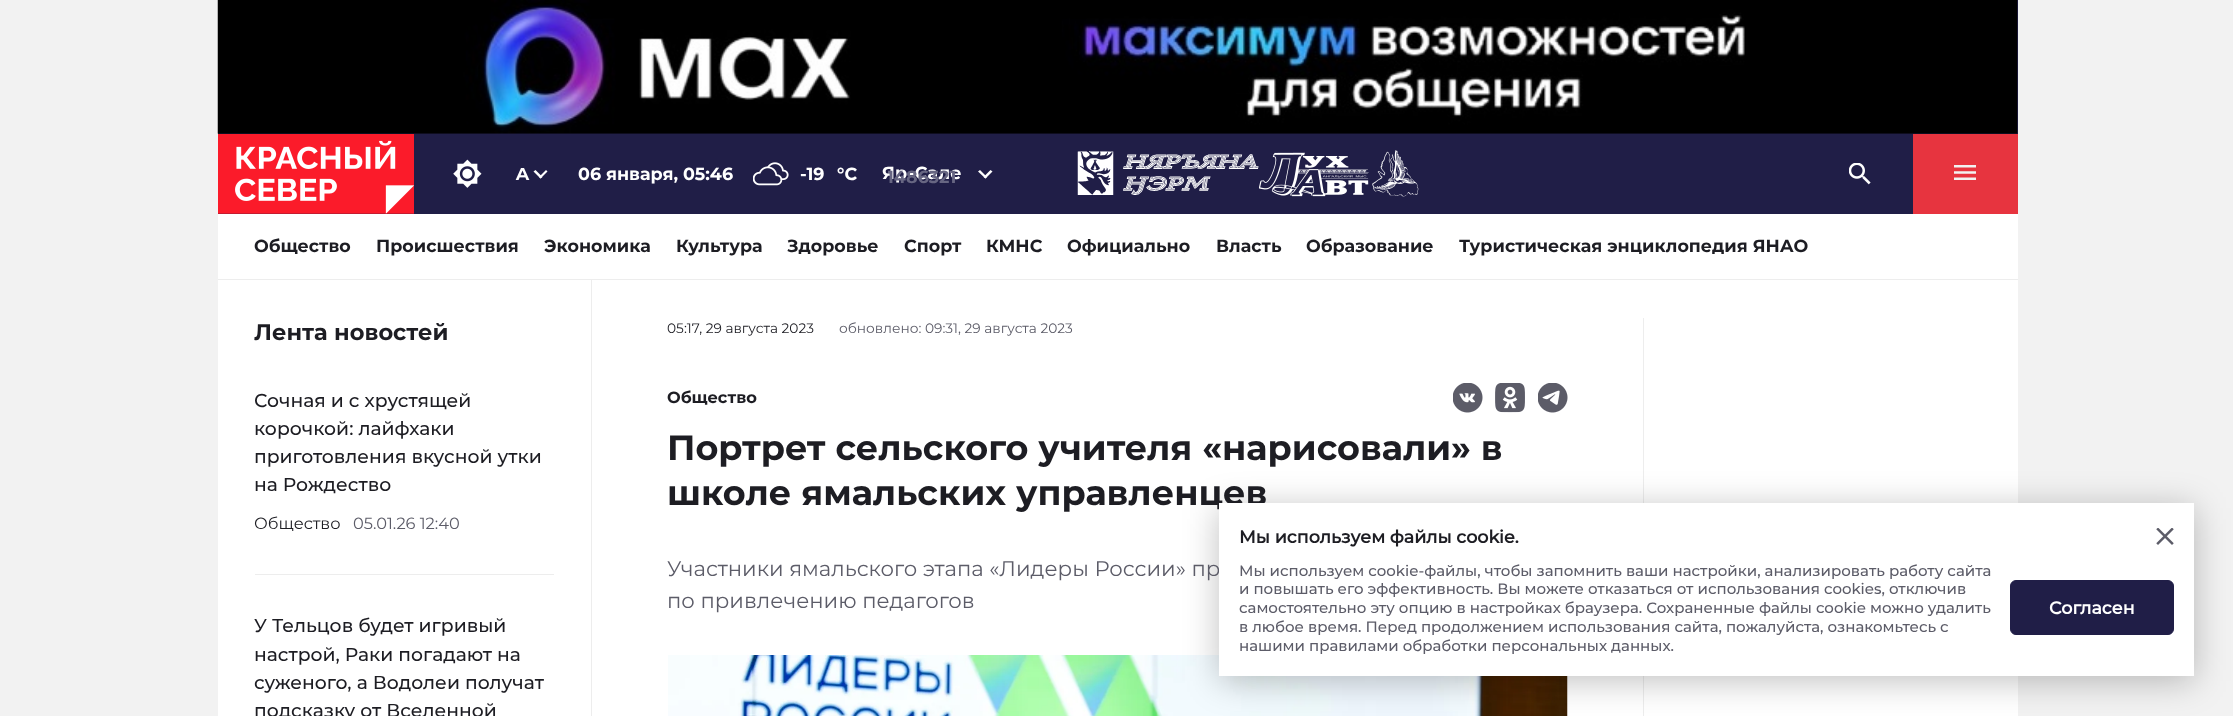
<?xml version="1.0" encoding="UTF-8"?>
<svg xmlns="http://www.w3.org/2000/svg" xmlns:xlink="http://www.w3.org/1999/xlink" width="2233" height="716">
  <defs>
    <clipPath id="clip1"><rect x="888" y="166" width="106" height="20" /></clipPath>
  </defs>
  <rect width="100%" height="100%" fill="#f2f2f2" />
  <rect x="218" width="1800" height="214" fill="#201e47" />
  <image x="217" y="0" width="1801" height="134" xlink:href="image1.png" />
  <image x="218" y="134" width="196" height="80" xlink:href="image2.png" />
  <image x="453" y="159" width="29" height="29" xlink:href="image3.png" />
  <image x="515" y="168" width="15" height="12" xlink:href="image4.png" />
  <path d="M 539 177 l 7 -7 l 1.5 1.5 l -7 7 z" fill="#ffffff" />
  <path d="M 533.5 171.5 l 2 -1.5 l 7 7 l -2 1.5 z" fill="#ffffff" />
  <image x="753" y="162" width="36" height="24" xlink:href="image5.png" />
  <path d="M 983.5 177 l 7 -7 l 2 1.5 l -7 7 z" fill="#ffffff" />
  <path d="M 978 171.5 l 2 -1.5 l 7 7 l -1.5 1.5 z" fill="#ffffff" />
  <image x="1077" y="151" width="182" height="44" xlink:href="image6.png" />
  <image x="1259" y="150" width="160" height="47" xlink:href="image7.png" />
  <image x="1849" y="163" width="22" height="22" xlink:href="image8.png" />
  <rect x="1913" y="134" width="105" height="80" fill="#e7343f" />
  <image x="1954" y="165" width="22" height="15" xlink:href="image9.png" />
  <rect x="218" y="214" width="1800" height="65" fill="#ffffff" />
  <rect x="218" y="279" width="1800" height="1" fill="#ededed" />
  <rect x="218" y="280" width="1800" height="436" fill="#ffffff" />
  <rect x="591" y="280" width="1" height="436" fill="#ededed" />
  <rect x="255" y="574" width="299" height="1" fill="#ededed" />
  <image x="1453" y="383" width="30" height="30" xlink:href="image10.png" />
  <image x="1495" y="383" width="30" height="30" xlink:href="image11.png" />
  <image x="1538" y="383" width="30" height="30" xlink:href="image12.png" />
  <image x="668" y="655" width="900" height="61" xlink:href="image13.png" />
  <rect x="1643" y="318" width="1" height="398" fill="#ededed" />
  <rect x="1219" y="508" width="975" height="173" fill="#000000" fill-opacity="0.25" filter="blur(17px)" />
  <text x="578" y="180" style="font-family: Montserrat; font-size: 17.5px; font-weight: bold; fill: #ffffff">06 января, 05:46</text>
  <text x="800" y="180" style="font-family: Montserrat; font-size: 17.5px; font-weight: bold; fill: #ffffff">-19</text>
  <text x="837" y="180" style="font-family: Montserrat; font-size: 17.5px; font-weight: bold; fill: #ffffff">°C</text>
  <text x="882" y="179" style="font-family: Montserrat; font-size: 17.5px; font-weight: bold; letter-spacing: 0.25px; fill: #ffffff">Яр-Сале</text>
  <g clip-path="url(#clip1)">
    <text x="887" y="183" style="font-family: Montserrat; font-size: 17.5px; font-weight: bold; fill: #676682">1486321</text>
  </g>
  <text x="254" y="252" style="font-family: Montserrat; font-size: 17.5px; font-weight: bold; fill: #1d1d23">Общество</text>
  <text x="376" y="252" style="font-family: Montserrat; font-size: 17.5px; font-weight: bold; fill: #1d1d23">Происшествия</text>
  <text x="544" y="252" style="font-family: Montserrat; font-size: 17.5px; font-weight: bold; fill: #1d1d23">Экономика</text>
  <text x="676" y="252" style="font-family: Montserrat; font-size: 17.5px; font-weight: bold; fill: #1d1d23">Культура</text>
  <text x="787" y="252" style="font-family: Montserrat; font-size: 17.5px; font-weight: bold; fill: #1d1d23">Здоровье</text>
  <text x="904" y="252" style="font-family: Montserrat; font-size: 17.5px; font-weight: bold; fill: #1d1d23">Спорт</text>
  <text x="986" y="252" style="font-family: Montserrat; font-size: 17.5px; font-weight: bold; fill: #1d1d23">КМНС</text>
  <text x="1067" y="252" style="font-family: Montserrat; font-size: 17.5px; font-weight: bold; fill: #1d1d23">Официально</text>
  <text x="1216" y="252" style="font-family: Montserrat; font-size: 17.5px; font-weight: bold; fill: #1d1d23">Власть</text>
  <text x="1306" y="252" style="font-family: Montserrat; font-size: 17.5px; font-weight: bold; fill: #1d1d23">Образование</text>
  <text x="1459" y="252" style="font-family: Montserrat; font-size: 17.5px; font-weight: bold; fill: #1d1d23">Туристическая энциклопедия ЯНАО</text>
  <text x="254" y="340" style="font-family: Montserrat; font-size: 22.5px; font-weight: bold; fill: #1d1d23">Лента новостей</text>
  <text x="254" y="407" style="font-family: Montserrat; font-size: 18.75px; font-weight: 500; fill: #1d1d23">Сочная и с хрустящей</text>
  <text x="254" y="435" style="font-family: Montserrat; font-size: 18.75px; font-weight: 500; fill: #1d1d23">корочкой: лайфхаки</text>
  <text x="254" y="463" style="font-family: Montserrat; font-size: 18.75px; font-weight: 500; fill: #1d1d23">приготовления вкусной утки</text>
  <text x="254" y="491" style="font-family: Montserrat; font-size: 18.75px; font-weight: 500; fill: #1d1d23">на Рождество</text>
  <text x="254" y="529" style="font-family: Montserrat; font-size: 16.25px; fill: #1d1d23">Общество</text>
  <text x="353" y="529" style="font-family: Montserrat; font-size: 16.25px; fill: #5c5c68">05.01.26 12:40</text>
  <text x="254" y="632" style="font-family: Montserrat; font-size: 18.75px; font-weight: 500; fill: #1d1d23">У Тельцов будет игривый</text>
  <text x="254" y="661" style="font-family: Montserrat; font-size: 18.75px; font-weight: 500; fill: #1d1d23">настрой, Раки погадают на</text>
  <text x="254" y="689" style="font-family: Montserrat; font-size: 18.75px; font-weight: 500; fill: #1d1d23">суженого, а Водолеи получат</text>
  <text x="254" y="717" style="font-family: Montserrat; font-size: 18.75px; font-weight: 500; fill: #1d1d23">подсказку от Вселенной</text>
  <text x="667" y="333" style="font-family: Montserrat; font-size: 13.75px; fill: #1d1d23">05:17, 29 августа 2023</text>
  <text x="839" y="333" style="font-family: Montserrat; font-size: 13.75px; fill: #5c5c68">обновлено: 09:31, 29 августа 2023</text>
  <text x="667" y="403" style="font-family: Montserrat; font-size: 16.25px; font-weight: bold; fill: #1d1d23">Общество</text>
  <text x="667" y="460" style="font-family: Montserrat; font-size: 35px; font-weight: bold; fill: #1d1d23">Портрет сельского учителя «нарисовали» в</text>
  <text x="667" y="505" style="font-family: Montserrat; font-size: 35px; font-weight: bold; fill: #1d1d23">школе ямальских управленцев</text>
  <text x="667" y="576" style="font-family: Montserrat; font-size: 21.25px; fill: #5c5c68">Участники ямальского этапа «Лидеры России» пр</text>
  <text x="667" y="608" style="font-family: Montserrat; font-size: 21.25px; fill: #5c5c68">по привлечению педагогов</text>
  <rect x="1219" y="503" width="975" height="173" fill="#ffffff" />
  <text x="1239" y="543" style="font-family: 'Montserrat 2'; font-size: 17.5px; font-weight: bold; fill: #1d1d23">Мы используем файлы cookie.</text>
  <image x="2156" y="528" width="18" height="17" xlink:href="image14.png" />
  <text x="1239" y="576" style="font-family: Montserrat; font-size: 15px; font-weight: 500; fill: #5c5c68">Мы используем cookie-файлы, чтобы запомнить ваши настройки, анализировать работу сайта</text>
  <text x="1239" y="594" style="font-family: Montserrat; font-size: 15px; font-weight: 500; fill: #5c5c68">и повышать его эффективность. Вы можете отказаться от использования cookies, отключив</text>
  <text x="1239" y="613" style="font-family: Montserrat; font-size: 15px; font-weight: 500; fill: #5c5c68">самостоятельно эту опцию в настройках браузера. Сохраненные файлы cookie можно удалить</text>
  <text x="1239" y="632" style="font-family: Montserrat; font-size: 15px; font-weight: 500; fill: #5c5c68">в любое время. Перед продолжением использования сайта, пожалуйста, ознакомьтесь с</text>
  <text x="1239" y="651" style="font-family: Montserrat; font-size: 15px; font-weight: 500; fill: #5c5c68">нашими правилами обработки персональных данных.</text>
  <rect x="2010.5" y="580.5" width="163" height="54" rx="5.5" fill="#201e47" stroke="#201e47" />
  <text x="2049" y="614" style="font-family: 'Montserrat 2'; font-size: 17.5px; font-weight: bold; fill: #ffffff">Согласен</text>
</svg>
